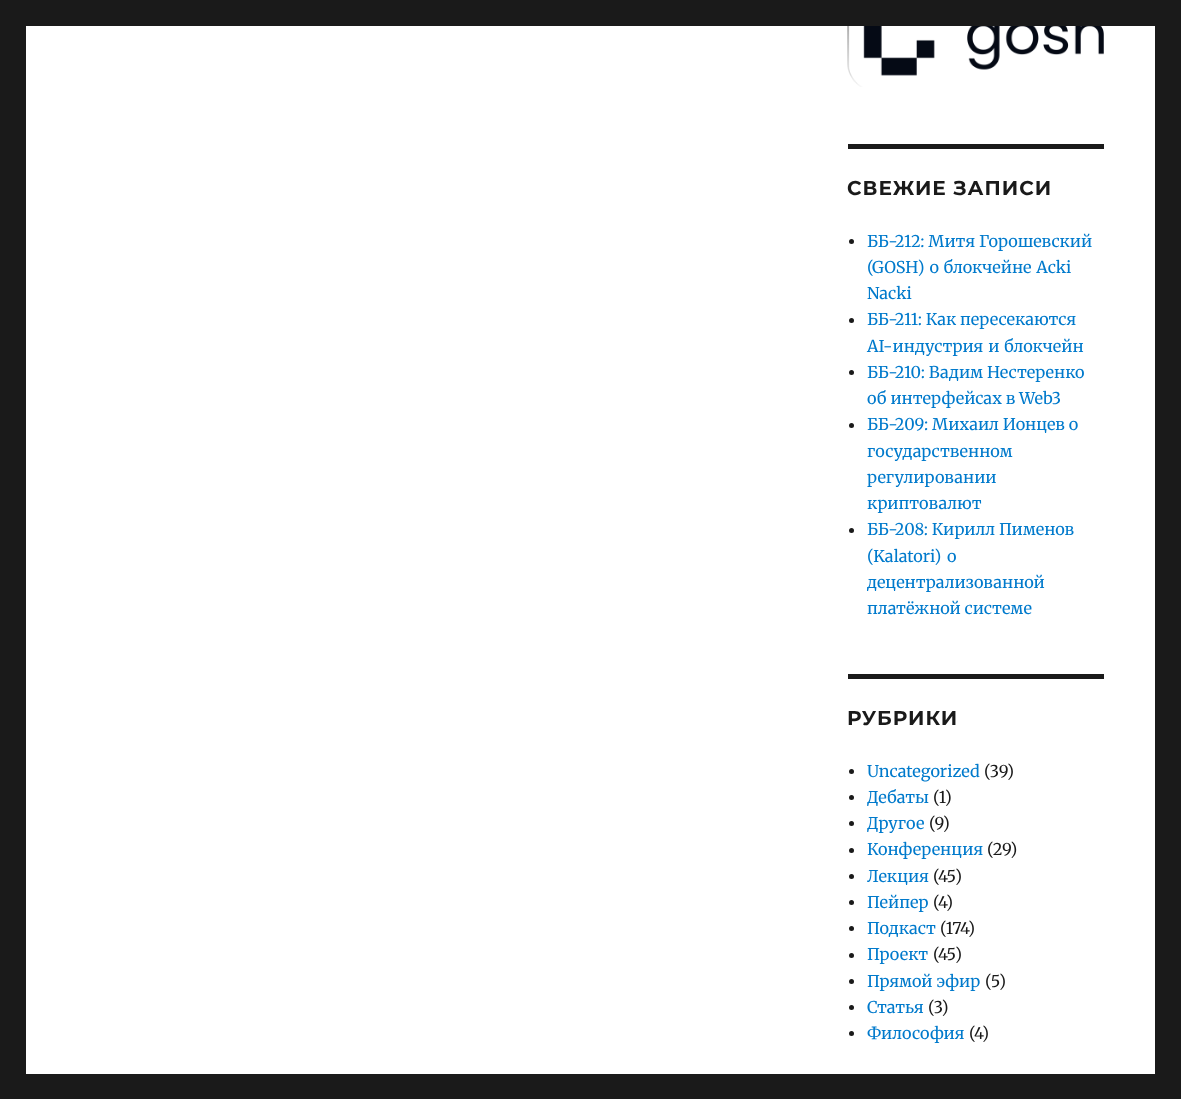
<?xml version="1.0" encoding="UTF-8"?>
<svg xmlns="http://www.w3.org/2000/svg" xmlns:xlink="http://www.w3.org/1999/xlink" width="1181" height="1099">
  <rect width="100%" height="100%" fill="#1a1a1a" />
  <rect x="26" y="26" width="1129" height="1048" fill="#ffffff" />
  <image x="847" y="26" width="257" height="61" xlink:href="image1.png" />
  <rect x="848" y="144" width="256" height="5" fill="#1a1a1a" />
  <circle cx="851.5" cy="241.5" r="2.5" fill="#1a1a1a" />
  <circle cx="851.5" cy="320.5" r="2.5" fill="#1a1a1a" />
  <circle cx="851.5" cy="372.5" r="2.5" fill="#1a1a1a" />
  <circle cx="851.5" cy="425.5" r="2.5" fill="#1a1a1a" />
  <circle cx="851.5" cy="530.5" r="2.5" fill="#1a1a1a" />
  <rect x="848" y="674" width="256" height="5" fill="#1a1a1a" />
  <circle cx="851.5" cy="771.5" r="2.5" fill="#1a1a1a" />
  <circle cx="851.5" cy="797.5" r="2.5" fill="#1a1a1a" />
  <circle cx="851.5" cy="823.5" r="2.5" fill="#1a1a1a" />
  <circle cx="851.5" cy="850.5" r="2.5" fill="#1a1a1a" />
  <circle cx="851.5" cy="876.5" r="2.5" fill="#1a1a1a" />
  <circle cx="851.5" cy="902.5" r="2.5" fill="#1a1a1a" />
  <circle cx="851.5" cy="928.5" r="2.5" fill="#1a1a1a" />
  <circle cx="851.5" cy="955.5" r="2.5" fill="#1a1a1a" />
  <circle cx="851.5" cy="981.5" r="2.5" fill="#1a1a1a" />
  <circle cx="851.5" cy="1007.5" r="2.5" fill="#1a1a1a" />
  <circle cx="851.5" cy="1033.5" r="2.5" fill="#1a1a1a" />
  <text x="847" y="195" style="font-family: Montserrat; font-size: 20px; font-weight: bold; letter-spacing: 1px; fill: #1a1a1a">СВЕЖИЕ ЗАПИСИ</text>
  <text x="867" y="247" style="font-family: Merriweather; font-size: 16.25px; fill: #007acc">ББ-212: Митя Горошевский</text>
  <text x="867" y="273" word-spacing="1" style="font-family: Merriweather; font-size: 16.25px; fill: #007acc">(GOSH) о блокчейне Acki</text>
  <text x="867" y="299" style="font-family: Merriweather; font-size: 16.25px; fill: #007acc">Nacki</text>
  <text x="867" y="325" style="font-family: Merriweather; font-size: 16.25px; fill: #007acc">ББ-211: Как пересекаются</text>
  <text x="867" y="352" word-spacing="1" style="font-family: Merriweather; font-size: 16.25px; fill: #007acc">AI-индустрия и блокчейн</text>
  <text x="867" y="378" style="font-family: Merriweather; font-size: 16.25px; fill: #007acc">ББ-210: Вадим Нестеренко</text>
  <text x="867" y="404" style="font-family: Merriweather; font-size: 16.25px; fill: #007acc">об интерфейсах в Web3</text>
  <text x="867" y="430" style="font-family: Merriweather; font-size: 16.25px; fill: #007acc">ББ-209: Михаил Ионцев о</text>
  <text x="867" y="457" style="font-family: Merriweather; font-size: 16.25px; fill: #007acc">государственном</text>
  <text x="867" y="483" style="font-family: Merriweather; font-size: 16.25px; fill: #007acc">регулировании</text>
  <text x="867" y="509" style="font-family: Merriweather; font-size: 16.25px; fill: #007acc">криптовалют</text>
  <text x="867" y="535" style="font-family: Merriweather; font-size: 16.25px; fill: #007acc">ББ-208: Кирилл Пименов</text>
  <text x="867" y="562" word-spacing="2" style="font-family: Merriweather; font-size: 16.25px; fill: #007acc">(Kalatori) о</text>
  <text x="867" y="588" style="font-family: Merriweather; font-size: 16.25px; fill: #007acc">децентрализованной</text>
  <text x="867" y="614" style="font-family: Merriweather; font-size: 16.25px; fill: #007acc">платёжной системе</text>
  <text x="847" y="725" style="font-family: Montserrat; font-size: 20px; font-weight: bold; letter-spacing: 1px; fill: #1a1a1a">РУБРИКИ</text>
  <text x="867" y="777" style="font-family: Merriweather; font-size: 16.25px; fill: #007acc">Uncategorized</text>
  <text x="984" y="777" style="font-family: Merriweather; font-size: 16.25px; fill: #1a1a1a">(39)</text>
  <text x="867" y="803" style="font-family: Merriweather; font-size: 16.25px; fill: #007acc">Дебаты</text>
  <text x="933" y="803" style="font-family: Merriweather; font-size: 16.25px; fill: #1a1a1a">(1)</text>
  <text x="867" y="829" style="font-family: Merriweather; font-size: 16.25px; fill: #007acc">Другое</text>
  <text x="929" y="829" style="font-family: Merriweather; font-size: 16.25px; fill: #1a1a1a">(9)</text>
  <text x="867" y="855" style="font-family: Merriweather; font-size: 16.25px; fill: #007acc">Конференция</text>
  <text x="987" y="855" style="font-family: Merriweather; font-size: 16.25px; fill: #1a1a1a">(29)</text>
  <text x="867" y="882" style="font-family: Merriweather; font-size: 16.25px; fill: #007acc">Лекция</text>
  <text x="933" y="882" style="font-family: Merriweather; font-size: 16.25px; fill: #1a1a1a">(45)</text>
  <text x="867" y="908" style="font-family: Merriweather; font-size: 16.25px; fill: #007acc">Пейпер</text>
  <text x="933" y="908" style="font-family: Merriweather; font-size: 16.25px; fill: #1a1a1a">(4)</text>
  <text x="867" y="934" style="font-family: Merriweather; font-size: 16.25px; fill: #007acc">Подкаст</text>
  <text x="940" y="934" style="font-family: Merriweather; font-size: 16.25px; fill: #1a1a1a">(174)</text>
  <text x="867" y="960" style="font-family: Merriweather; font-size: 16.25px; fill: #007acc">Проект</text>
  <text x="933" y="960" style="font-family: Merriweather; font-size: 16.25px; fill: #1a1a1a">(45)</text>
  <text x="867" y="987" style="font-family: Merriweather; font-size: 16.25px; fill: #007acc">Прямой эфир</text>
  <text x="985" y="987" style="font-family: Merriweather; font-size: 16.25px; fill: #1a1a1a">(5)</text>
  <text x="867" y="1013" style="font-family: Merriweather; font-size: 16.25px; fill: #007acc">Статья</text>
  <text x="928" y="1013" style="font-family: Merriweather; font-size: 16.25px; fill: #1a1a1a">(3)</text>
  <text x="867" y="1039" style="font-family: Merriweather; font-size: 16.25px; fill: #007acc">Философия</text>
  <text x="969" y="1039" style="font-family: Merriweather; font-size: 16.25px; fill: #1a1a1a">(4)</text>
</svg>
